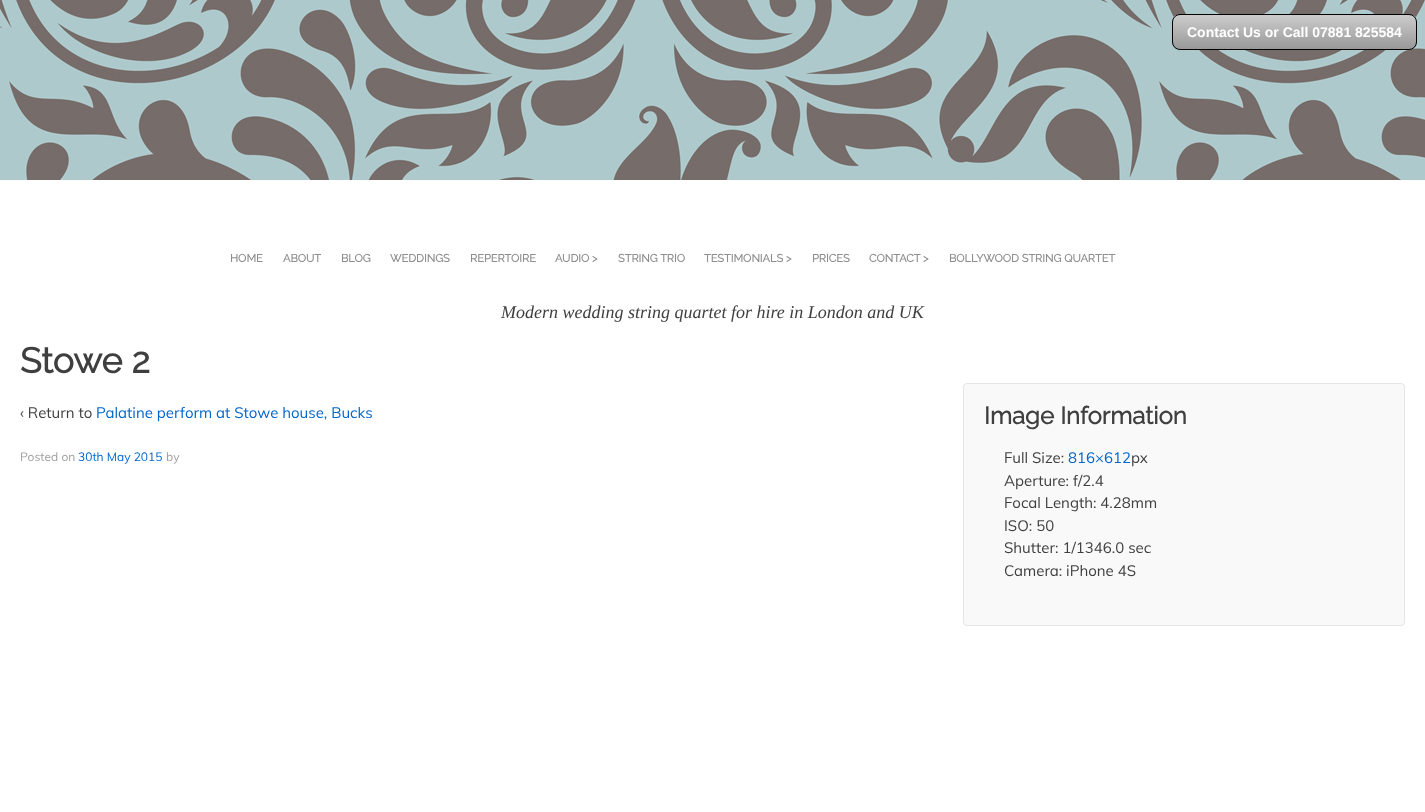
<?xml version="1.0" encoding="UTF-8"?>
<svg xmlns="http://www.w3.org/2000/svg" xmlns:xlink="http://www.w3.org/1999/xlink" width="1425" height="812">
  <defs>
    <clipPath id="clip1"><rect x="1172" y="14" width="245" height="36" rx="8" /></clipPath>
    <linearGradient id="g1" gradientUnits="userSpaceOnUse" x1="1295" y1="15" x2="1295" y2="49"><stop offset="0" stop-color="#cccccc" /><stop offset="1" stop-color="#999999" /></linearGradient>
  </defs>
  <rect width="100%" height="100%" fill="#ffffff" />
  <image x="0" y="0" width="1425" height="180" xlink:href="image1.png" />
  <g clip-path="url(#clip1)">
    <rect x="1172" y="15" width="245" height="34" fill="url(#g1)" />
  </g>
  <rect x="1172.5" y="14.5" width="244" height="35" rx="7.5" fill="none" stroke="#000000" />
  <rect x="963.5" y="383.5" width="441" height="242" rx="3.5" fill="#f9f9f9" stroke="#e5e5e5" />
  <text x="1187" y="37" style="font-family: Liberation Sans; font-size: 14px; font-weight: bold; fill: #ffffff">Contact Us or Call 07881 825584</text>
  <text x="230" y="262" style="font-family: Raleway; font-size: 11px; font-weight: bold; fill: #8e8e8e">HOME</text>
  <text x="283" y="262" style="font-family: Raleway; font-size: 11px; font-weight: bold; fill: #8e8e8e">ABOUT</text>
  <text x="341" y="262" style="font-family: Raleway; font-size: 11px; font-weight: bold; fill: #8e8e8e">BLOG</text>
  <text x="390" y="262" style="font-family: Raleway; font-size: 11px; font-weight: bold; fill: #8e8e8e">WEDDINGS</text>
  <text x="470" y="262" style="font-family: Raleway; font-size: 11px; font-weight: bold; fill: #8e8e8e">REPERTOIRE</text>
  <text x="555" y="262" style="font-family: Raleway; font-size: 11px; font-weight: bold; fill: #8e8e8e">AUDIO &gt;</text>
  <text x="618" y="262" style="font-family: Raleway; font-size: 11px; font-weight: bold; fill: #8e8e8e">STRING TRIO</text>
  <text x="704" y="262" style="font-family: Raleway; font-size: 11px; font-weight: bold; fill: #8e8e8e">TESTIMONIALS &gt;</text>
  <text x="812" y="262" style="font-family: Raleway; font-size: 11px; font-weight: bold; fill: #8e8e8e">PRICES</text>
  <text x="869" y="262" style="font-family: Raleway; font-size: 11px; font-weight: bold; fill: #8e8e8e">CONTACT &gt;</text>
  <text x="949" y="262" style="font-family: Raleway; font-size: 11px; font-weight: bold; fill: #8e8e8e">BOLLYWOOD STRING QUARTET</text>
  <text x="501" y="318" style="font-family: Liberation Serif; font-size: 18px; font-style: italic; fill: #3f3f3f">Modern wedding string quartet for hire in London and UK</text>
  <text x="20" y="373" style="font-family: Raleway; font-size: 35.5px; font-weight: bold; fill: #3f3f3f">Stowe 2</text>
  <text x="20" y="418" style="font-family: Muli; font-size: 15px; fill: #3f3f3f">‹ Return to</text>
  <text x="96" y="418" style="font-family: Muli; font-size: 15px; fill: #0066cc">Palatine perform at Stowe house, Bucks</text>
  <text x="20" y="461" style="font-family: Muli; font-size: 12px; fill: #9f9f9f">Posted on</text>
  <text x="78" y="461" style="font-family: Muli; font-size: 12px; fill: #0066cc">30th May 2015</text>
  <text x="166" y="461" style="font-family: Muli; font-size: 12px; fill: #9f9f9f">by</text>
  <text x="984" y="424" style="font-family: Raleway; font-size: 24px; font-weight: bold; fill: #3f3f3f">Image Information</text>
  <text x="1004" y="463" style="font-family: Muli; font-size: 15px; fill: #3f3f3f">Full Size:</text>
  <text x="1068" y="463" style="font-family: Muli; font-size: 15px; fill: #0066cc">816×612</text>
  <text x="1131" y="463" style="font-family: Muli; font-size: 15px; fill: #3f3f3f">px</text>
  <text x="1004" y="486" style="font-family: Muli; font-size: 15px; fill: #3f3f3f">Aperture: f/2.4</text>
  <text x="1004" y="508" style="font-family: Muli; font-size: 15px; fill: #3f3f3f">Focal Length: 4.28mm</text>
  <text x="1004" y="531" style="font-family: Muli; font-size: 15px; fill: #3f3f3f">ISO: 50</text>
  <text x="1004" y="553" style="font-family: Muli; font-size: 15px; fill: #3f3f3f">Shutter: 1/1346.0 sec</text>
  <text x="1004" y="576" style="font-family: Muli; font-size: 15px; fill: #3f3f3f">Camera: iPhone 4S</text>
</svg>
